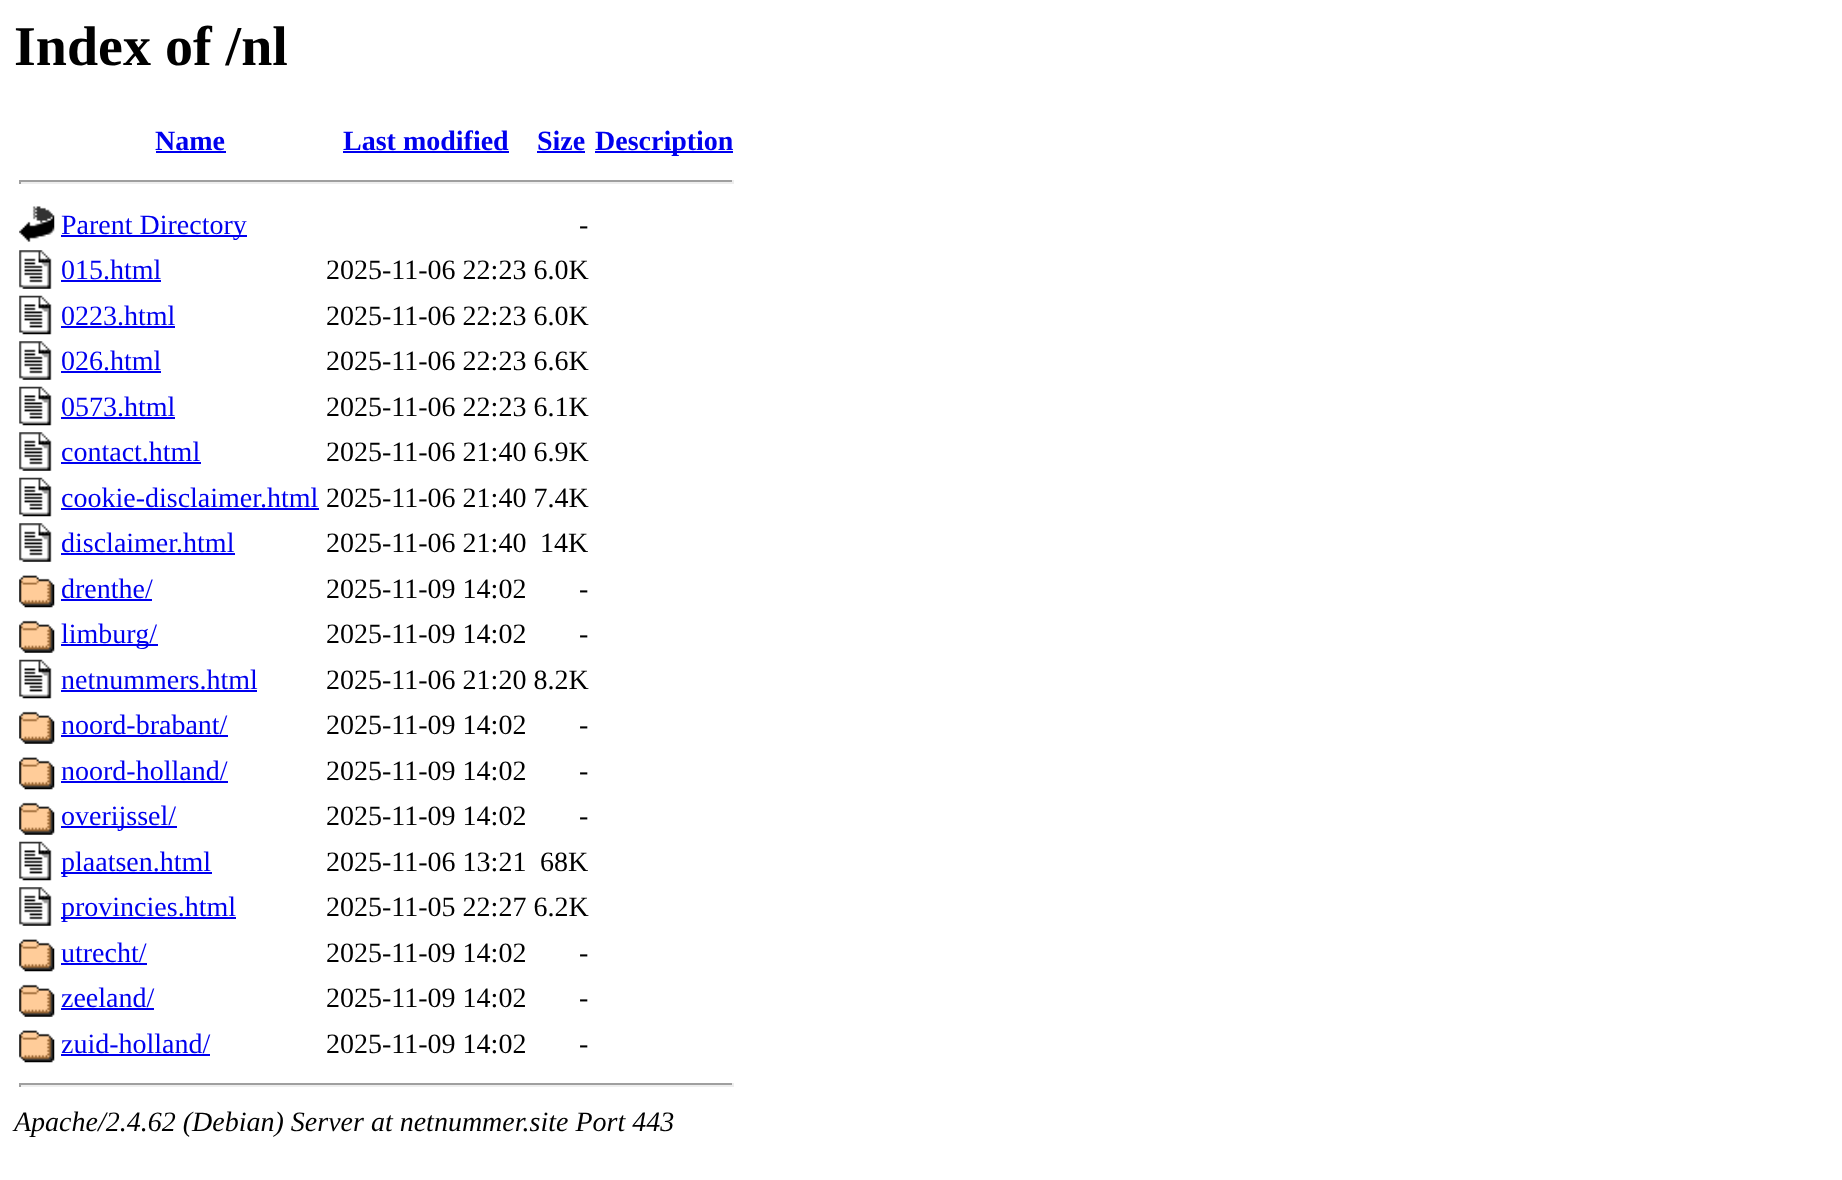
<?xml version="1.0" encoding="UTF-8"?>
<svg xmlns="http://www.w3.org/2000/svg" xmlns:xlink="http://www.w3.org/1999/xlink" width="1842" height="1180">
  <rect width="100%" height="100%" fill="#ffffff" />
  <rect x="156" y="151" width="70" height="2" fill="#0000ee" />
  <rect x="343" y="151" width="166" height="2" fill="#0000ee" />
  <rect x="537" y="151" width="48" height="2" fill="#0000ee" />
  <rect x="595" y="151" width="138" height="2" fill="#0000ee" />
  <rect x="19" y="180" width="714" height="2" fill="#9f9f9f" />
  <rect x="732" y="180" width="2" height="4" fill="#eeeeee" />
  <rect x="19" y="182" width="714" height="2" fill="#eeeeee" />
  <rect x="19" y="180" width="2" height="4" fill="#9f9f9f" />
  <image x="19" y="206" width="36" height="36" xlink:href="image1.png" />
  <rect x="61" y="235" width="186" height="2" fill="#0000ee" />
  <image x="19" y="250" width="33" height="39" xlink:href="image2.png" />
  <rect x="61" y="280" width="100" height="2" fill="#0000ee" />
  <image x="19" y="295" width="33" height="40" xlink:href="image3.png" />
  <rect x="61" y="326" width="114" height="2" fill="#0000ee" />
  <image x="19" y="341" width="33" height="39" xlink:href="image2.png" />
  <rect x="61" y="371" width="100" height="2" fill="#0000ee" />
  <image x="19" y="386" width="33" height="40" xlink:href="image3.png" />
  <rect x="61" y="417" width="114" height="2" fill="#0000ee" />
  <image x="19" y="432" width="33" height="39" xlink:href="image2.png" />
  <rect x="61" y="462" width="140" height="2" fill="#0000ee" />
  <image x="19" y="477" width="33" height="40" xlink:href="image3.png" />
  <rect x="61" y="508" width="258" height="2" fill="#0000ee" />
  <image x="19" y="523" width="33" height="39" xlink:href="image2.png" />
  <rect x="61" y="553" width="174" height="2" fill="#0000ee" />
  <image x="19" y="575" width="36" height="33" xlink:href="image4.png" />
  <rect x="61" y="599" width="91" height="2" fill="#0000ee" />
  <image x="19" y="620" width="36" height="33" xlink:href="image5.png" />
  <rect x="61" y="644" width="97" height="2" fill="#0000ee" />
  <image x="19" y="659" width="33" height="40" xlink:href="image3.png" />
  <rect x="61" y="690" width="196" height="2" fill="#0000ee" />
  <image x="19" y="711" width="36" height="33" xlink:href="image5.png" />
  <rect x="61" y="735" width="167" height="2" fill="#0000ee" />
  <image x="19" y="757" width="36" height="33" xlink:href="image4.png" />
  <rect x="61" y="781" width="167" height="2" fill="#0000ee" />
  <image x="19" y="802" width="36" height="33" xlink:href="image5.png" />
  <rect x="61" y="826" width="116" height="2" fill="#0000ee" />
  <image x="19" y="841" width="33" height="40" xlink:href="image3.png" />
  <rect x="61" y="872" width="151" height="2" fill="#0000ee" />
  <image x="19" y="887" width="33" height="39" xlink:href="image2.png" />
  <rect x="61" y="917" width="175" height="2" fill="#0000ee" />
  <image x="19" y="939" width="36" height="33" xlink:href="image4.png" />
  <rect x="61" y="963" width="86" height="2" fill="#0000ee" />
  <image x="19" y="984" width="36" height="33" xlink:href="image5.png" />
  <rect x="61" y="1008" width="93" height="2" fill="#0000ee" />
  <image x="19" y="1030" width="36" height="33" xlink:href="image4.png" />
  <rect x="61" y="1054" width="149" height="2" fill="#0000ee" />
  <rect x="19" y="1083" width="714" height="2" fill="#9f9f9f" />
  <rect x="732" y="1083" width="2" height="4" fill="#eeeeee" />
  <rect x="19" y="1085" width="714" height="2" fill="#eeeeee" />
  <rect x="19" y="1083" width="2" height="4" fill="#9f9f9f" />
  <text x="14" y="65" style="font-family: Liberation Serif; font-size: 56px; font-weight: bold; fill: #000000">Index of /nl</text>
  <text x="155" y="150" style="font-family: Liberation Serif; font-size: 28px; font-weight: bold; fill: #0000ee">Name</text>
  <text x="343" y="150" style="font-family: Liberation Serif; font-size: 28px; font-weight: bold; fill: #0000ee">Last modified</text>
  <text x="537" y="150" style="font-family: Liberation Serif; font-size: 28px; font-weight: bold; fill: #0000ee">Size</text>
  <text x="595" y="150" style="font-family: Liberation Serif; font-size: 28px; font-weight: bold; fill: #0000ee">Description</text>
  <text x="61" y="234" style="font-family: Liberation Serif; font-size: 28px; fill: #0000ee">Parent Directory</text>
  <text x="579" y="234" style="font-family: Liberation Serif; font-size: 28px; fill: #000000">-</text>
  <text x="61" y="279" style="font-family: Liberation Serif; font-size: 28px; fill: #0000ee">015.html</text>
  <text x="326" y="279" style="font-family: Liberation Serif; font-size: 28px; fill: #000000">2025-11-06 22:23 6.0K</text>
  <text x="61" y="325" style="font-family: Liberation Serif; font-size: 28px; fill: #0000ee">0223.html</text>
  <text x="326" y="325" style="font-family: Liberation Serif; font-size: 28px; fill: #000000">2025-11-06 22:23 6.0K</text>
  <text x="61" y="370" style="font-family: Liberation Serif; font-size: 28px; fill: #0000ee">026.html</text>
  <text x="326" y="370" style="font-family: Liberation Serif; font-size: 28px; fill: #000000">2025-11-06 22:23 6.6K</text>
  <text x="61" y="416" style="font-family: Liberation Serif; font-size: 28px; fill: #0000ee">0573.html</text>
  <text x="326" y="416" style="font-family: Liberation Serif; font-size: 28px; fill: #000000">2025-11-06 22:23 6.1K</text>
  <text x="61" y="461" style="font-family: Liberation Serif; font-size: 28px; fill: #0000ee">contact.html</text>
  <text x="326" y="461" style="font-family: Liberation Serif; font-size: 28px; fill: #000000">2025-11-06 21:40 6.9K</text>
  <text x="61" y="507" style="font-family: Liberation Serif; font-size: 28px; fill: #0000ee">cookie-disclaimer.html</text>
  <text x="326" y="507" style="font-family: Liberation Serif; font-size: 28px; fill: #000000">2025-11-06 21:40 7.4K</text>
  <text x="61" y="552" style="font-family: Liberation Serif; font-size: 28px; fill: #0000ee">disclaimer.html</text>
  <text x="326" y="552" style="font-family: Liberation Serif; font-size: 28px; fill: #000000">2025-11-06 21:40</text>
  <text x="540" y="552" style="font-family: Liberation Serif; font-size: 28px; fill: #000000">14K</text>
  <text x="61" y="598" style="font-family: Liberation Serif; font-size: 28px; fill: #0000ee">drenthe/</text>
  <text x="326" y="598" style="font-family: Liberation Serif; font-size: 28px; fill: #000000">2025-11-09 14:02</text>
  <text x="579" y="598" style="font-family: Liberation Serif; font-size: 28px; fill: #000000">-</text>
  <text x="61" y="643" style="font-family: Liberation Serif; font-size: 28px; fill: #0000ee">limburg/</text>
  <text x="326" y="643" style="font-family: Liberation Serif; font-size: 28px; fill: #000000">2025-11-09 14:02</text>
  <text x="579" y="643" style="font-family: Liberation Serif; font-size: 28px; fill: #000000">-</text>
  <text x="61" y="689" style="font-family: Liberation Serif; font-size: 28px; fill: #0000ee">netnummers.html</text>
  <text x="326" y="689" style="font-family: Liberation Serif; font-size: 28px; fill: #000000">2025-11-06 21:20 8.2K</text>
  <text x="61" y="734" style="font-family: Liberation Serif; font-size: 28px; fill: #0000ee">noord-brabant/</text>
  <text x="326" y="734" style="font-family: Liberation Serif; font-size: 28px; fill: #000000">2025-11-09 14:02</text>
  <text x="579" y="734" style="font-family: Liberation Serif; font-size: 28px; fill: #000000">-</text>
  <text x="61" y="780" style="font-family: Liberation Serif; font-size: 28px; fill: #0000ee">noord-holland/</text>
  <text x="326" y="780" style="font-family: Liberation Serif; font-size: 28px; fill: #000000">2025-11-09 14:02</text>
  <text x="579" y="780" style="font-family: Liberation Serif; font-size: 28px; fill: #000000">-</text>
  <text x="61" y="825" style="font-family: Liberation Serif; font-size: 28px; fill: #0000ee">overijssel/</text>
  <text x="326" y="825" style="font-family: Liberation Serif; font-size: 28px; fill: #000000">2025-11-09 14:02</text>
  <text x="579" y="825" style="font-family: Liberation Serif; font-size: 28px; fill: #000000">-</text>
  <text x="61" y="871" style="font-family: Liberation Serif; font-size: 28px; fill: #0000ee">plaatsen.html</text>
  <text x="326" y="871" style="font-family: Liberation Serif; font-size: 28px; fill: #000000">2025-11-06 13:21</text>
  <text x="540" y="871" style="font-family: Liberation Serif; font-size: 28px; fill: #000000">68K</text>
  <text x="61" y="916" style="font-family: Liberation Serif; font-size: 28px; fill: #0000ee">provincies.html</text>
  <text x="326" y="916" style="font-family: Liberation Serif; font-size: 28px; fill: #000000">2025-11-05 22:27 6.2K</text>
  <text x="61" y="962" style="font-family: Liberation Serif; font-size: 28px; fill: #0000ee">utrecht/</text>
  <text x="326" y="962" style="font-family: Liberation Serif; font-size: 28px; fill: #000000">2025-11-09 14:02</text>
  <text x="579" y="962" style="font-family: Liberation Serif; font-size: 28px; fill: #000000">-</text>
  <text x="61" y="1007" style="font-family: Liberation Serif; font-size: 28px; fill: #0000ee">zeeland/</text>
  <text x="326" y="1007" style="font-family: Liberation Serif; font-size: 28px; fill: #000000">2025-11-09 14:02</text>
  <text x="579" y="1007" style="font-family: Liberation Serif; font-size: 28px; fill: #000000">-</text>
  <text x="61" y="1053" style="font-family: Liberation Serif; font-size: 28px; fill: #0000ee">zuid-holland/</text>
  <text x="326" y="1053" style="font-family: Liberation Serif; font-size: 28px; fill: #000000">2025-11-09 14:02</text>
  <text x="579" y="1053" style="font-family: Liberation Serif; font-size: 28px; fill: #000000">-</text>
  <text x="14" y="1131" style="font-family: Liberation Serif; font-size: 28px; font-style: italic; fill: #000000">Apache/2.4.62 (Debian) Server at netnummer.site Port 443</text>
</svg>
